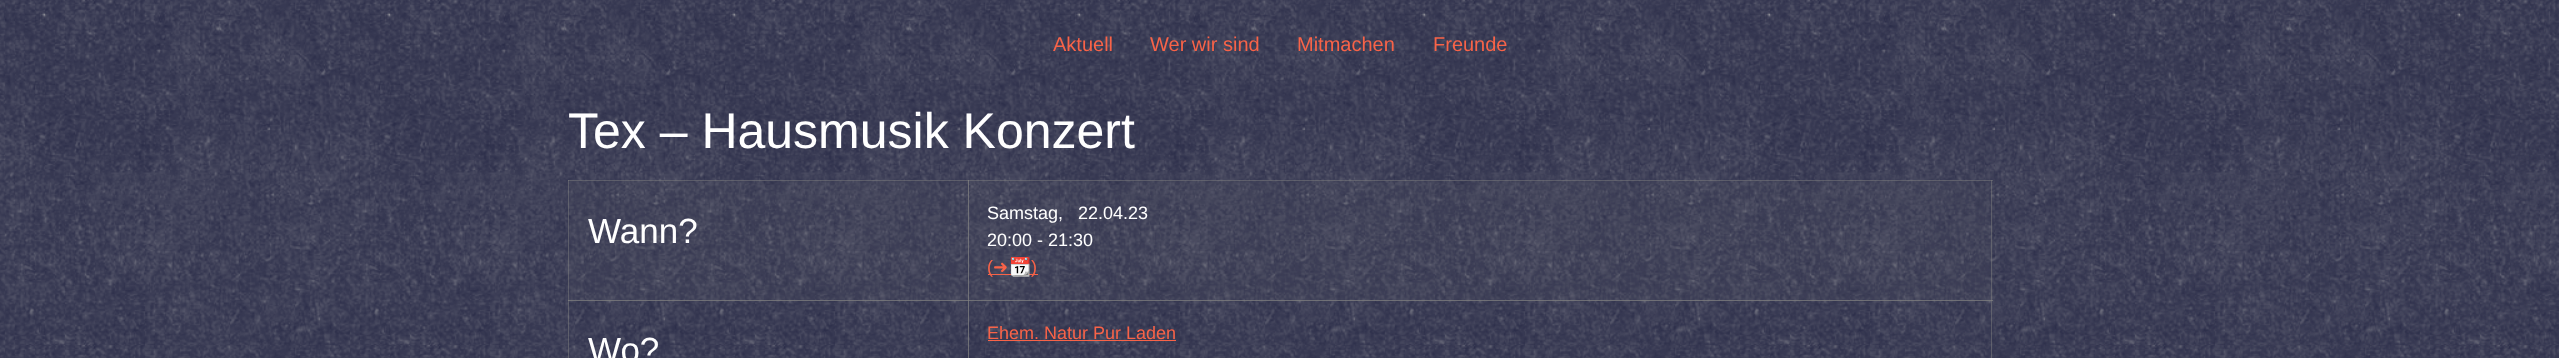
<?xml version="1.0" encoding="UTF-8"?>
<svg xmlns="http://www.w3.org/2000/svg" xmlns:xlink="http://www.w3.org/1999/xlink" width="2559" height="358">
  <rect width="100%" height="100%" fill="#2b2d4a" />
  <image x="0" y="0" width="2559" height="358" xlink:href="image1.png" />
  <rect x="569" y="181" width="399" height="119" fill="#808080" fill-opacity="0.07" />
  <rect x="968" y="180" width="1025" height="1" fill="#808080" fill-opacity="0.5" />
  <rect x="968" y="181" width="1025" height="119" fill="#808080" fill-opacity="0.07" />
  <rect x="968" y="300" width="1025" height="1" fill="#808080" fill-opacity="0.5" />
  <rect x="1991" y="300" width="1" height="58" fill="#808080" fill-opacity="0.5" />
  <rect x="1991" y="180" width="1" height="121" fill="#808080" fill-opacity="0.5" />
  <rect x="968" y="300" width="1" height="58" fill="#808080" fill-opacity="0.5" />
  <rect x="568" y="300" width="401" height="1" fill="#808080" fill-opacity="0.5" />
  <rect x="968" y="300" width="1" height="58" fill="#808080" fill-opacity="0.5" />
  <rect x="968" y="300" width="1025" height="1" fill="#808080" fill-opacity="0.5" />
  <rect x="968" y="180" width="1" height="121" fill="#808080" fill-opacity="0.5" />
  <rect x="568" y="180" width="401" height="1" fill="#808080" fill-opacity="0.5" />
  <rect x="968" y="180" width="1" height="121" fill="#808080" fill-opacity="0.5" />
  <rect x="568" y="300" width="1" height="58" fill="#808080" fill-opacity="0.5" />
  <rect x="568" y="300" width="401" height="1" fill="#808080" fill-opacity="0.5" />
  <rect x="568" y="180" width="1" height="121" fill="#808080" fill-opacity="0.5" />
  <rect x="988" y="274" width="50" height="1" fill="#f86348" />
  <rect x="988" y="340" width="188" height="1" fill="#f86348" />
  <text x="1053" y="51" style="font-family: Liberation Sans; font-size: 20px; fill: #f86348">Aktuell</text>
  <text x="1150" y="51" style="font-family: Liberation Sans; font-size: 20px; fill: #f86348">Wer wir sind</text>
  <text x="1297" y="51" style="font-family: Liberation Sans; font-size: 20px; fill: #f86348">Mitmachen</text>
  <text x="1433" y="51" style="font-family: Liberation Sans; font-size: 20px; fill: #f86348">Freunde</text>
  <text x="568" y="148" style="font-family: Liberation Sans; font-size: 50px; fill: #ffffff">Tex – Hausmusik Konzert</text>
  <text x="588" y="243" style="font-family: Liberation Sans; font-size: 35px; fill: #ffffff">Wann?</text>
  <text x="987" y="219" style="font-family: Liberation Sans; font-size: 18px; fill: #ffffff" xml:space="preserve">Samstag,   22.04.23</text>
  <text x="987" y="246" style="font-family: Liberation Sans; font-size: 18px; fill: #ffffff">20:00 - 21:30</text>
  <text x="987" y="273" style="font-family: Liberation Sans; font-size: 18px; fill: #f86348">(</text>
  <text x="993" y="273" style="font-family: DejaVu Sans; font-size: 18px; fill: #f86348">➜</text>
  <text x="1009" y="273" style="font-family: Noto Color Emoji; font-size: 18px; fill: #f86348">📆</text>
  <text x="1031" y="273" style="font-family: Liberation Sans; font-size: 18px; fill: #f86348">)</text>
  <text x="987" y="339" style="font-family: Liberation Sans; font-size: 18px; fill: #f86348">Ehem. Natur Pur Laden</text>
  <text x="588" y="362" style="font-family: Liberation Sans; font-size: 35px; fill: #ffffff">Wo?</text>
</svg>
